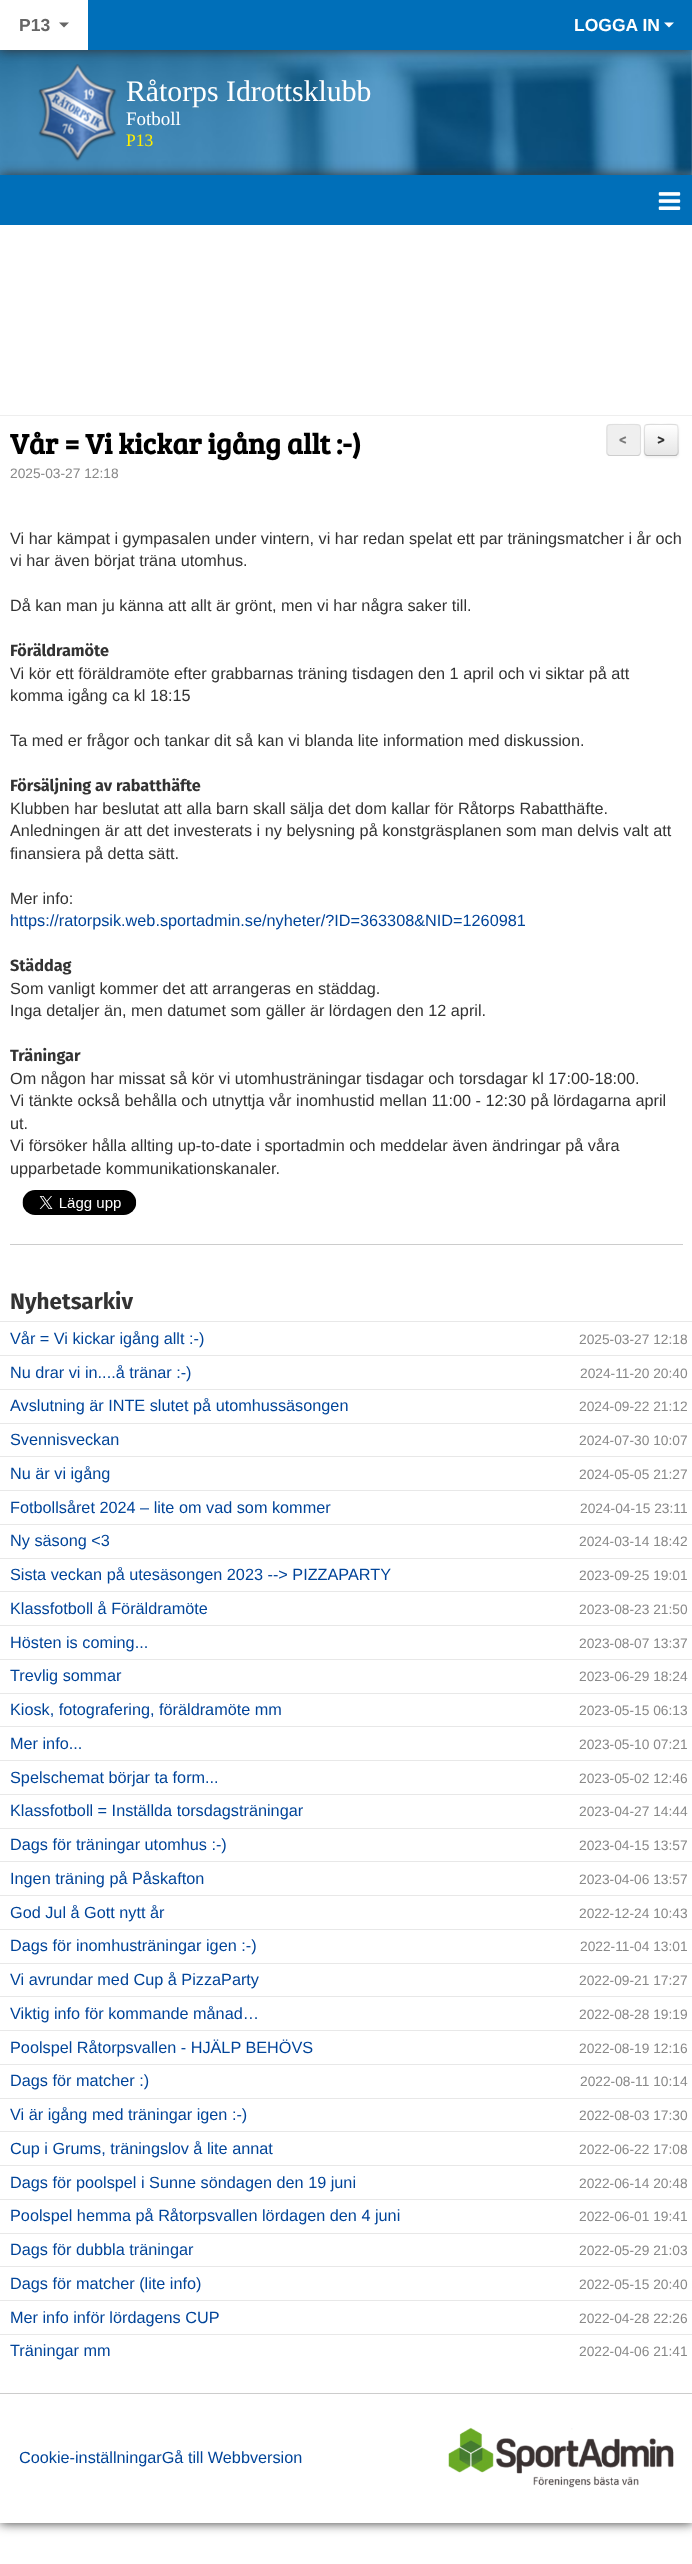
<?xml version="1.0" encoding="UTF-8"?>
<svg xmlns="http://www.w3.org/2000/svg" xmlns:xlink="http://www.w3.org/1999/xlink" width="692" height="2564">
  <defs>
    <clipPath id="clip1"><rect x="644" y="424" width="35" height="32" rx="4" /></clipPath>
    <linearGradient id="g1" gradientUnits="userSpaceOnUse" x1="661" y1="425" x2="661" y2="455"><stop offset="0" stop-color="#ffffff" /><stop offset="1" stop-color="#e6e6e6" /></linearGradient>
  </defs>
  <rect width="100%" height="100%" fill="#ffffff" />
  <image x="0" y="50" width="692" height="125" xlink:href="image1.png" />
  <rect width="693" height="50" fill="#333333" filter="blur(6px)" />
  <rect x="88" width="604" height="50" fill="#006fb9" />
  <rect width="88" height="50" fill="#ffffff" />
  <path d="M 59 22.5 h 10 l -5 5 z" fill="#666666" />
  <path d="M 664 22.5 h 10 l -5 5 z" fill="#ffffff" />
  <rect y="175" width="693" height="2348" fill="#333333" filter="blur(6px)" />
  <image x="38" y="64" width="79" height="98" xlink:href="image2.png" />
  <rect y="225" width="692" height="2168" fill="#ffffff" />
  <rect y="175" width="692" height="50" fill="#006fb9" />
  <image x="658" y="192" width="23" height="18" xlink:href="image3.png" />
  <rect y="415" width="692" height="1" fill="#eeeeee" />
  <image x="22" y="1190" width="115" height="25" xlink:href="image4.png" />
  <rect x="10" y="1244" width="673" height="1" fill="#cccccc" />
  <rect x="644" y="425" width="35" height="33" rx="4" fill="#000000" fill-opacity="0.05" filter="blur(1px)" />
  <rect x="606" y="424" width="35" height="32" rx="4" fill="#efefef" />
  <path d="M 639.5 454.5 c -0.5 1 -1 1 -2 1 h -27.5 c -1 0 -1.5 0 -2 -1" fill="none" stroke="#cecece" stroke-width="1.2" />
  <path d="M 608 454.5 c -2 -1.5 -1 -4.5 -1 -6 v -8.5 c 0 -19 -3 -15.5 17 -15.5 c 19.5 0 16.5 -3.5 16.5 15.5 v 8.5 c 0 1.5 1 4.5 -1 6" fill="none" stroke="#595959" stroke-opacity="0.1" stroke-width="1.2" />
  <rect x="644" y="424" width="35" height="32" rx="4" fill="#f5f5f5" />
  <g clip-path="url(#clip1)">
    <rect x="644" y="425" width="35" height="30" fill="url(#g1)" />
  </g>
  <path d="M 677 454.5 c -0.5 1 -1 1 -2 1 h -27.5 c -1 0 -1.5 0 -2 -1" fill="none" stroke="#b3b3b3" stroke-width="1.2" />
  <path d="M 645.5 454.5 c -2 -1.5 -1 -4.5 -1 -6 v -8.5 c 0 -19 -3 -15.5 16.5 -15.5 c 20 0 17 -3.5 17 15.5 v 8.5 c 0 1.5 1 4.5 -1 6" fill="none" stroke="#000000" stroke-opacity="0.1" stroke-width="1.2" />
  <rect y="1321" width="692" height="1" fill="#e8e8e8" />
  <rect y="1355" width="692" height="1" fill="#e8e8e8" />
  <rect y="1389" width="692" height="1" fill="#e8e8e8" />
  <rect y="1423" width="692" height="1" fill="#e8e8e8" />
  <rect y="1456" width="692" height="1" fill="#e8e8e8" />
  <rect y="1490" width="692" height="1" fill="#e8e8e8" />
  <rect y="1524" width="692" height="1" fill="#e8e8e8" />
  <rect y="1558" width="692" height="1" fill="#e8e8e8" />
  <rect y="1591" width="692" height="1" fill="#e8e8e8" />
  <rect y="1625" width="692" height="1" fill="#e8e8e8" />
  <rect y="1659" width="692" height="1" fill="#e8e8e8" />
  <rect y="1693" width="692" height="1" fill="#e8e8e8" />
  <rect y="1726" width="692" height="1" fill="#e8e8e8" />
  <rect y="1760" width="692" height="1" fill="#e8e8e8" />
  <rect y="1794" width="692" height="1" fill="#e8e8e8" />
  <rect y="1828" width="692" height="1" fill="#e8e8e8" />
  <rect y="1861" width="692" height="1" fill="#e8e8e8" />
  <rect y="1895" width="692" height="1" fill="#e8e8e8" />
  <rect y="1929" width="692" height="1" fill="#e8e8e8" />
  <rect y="1963" width="692" height="1" fill="#e8e8e8" />
  <rect y="1996" width="692" height="1" fill="#e8e8e8" />
  <rect y="2030" width="692" height="1" fill="#e8e8e8" />
  <rect y="2064" width="692" height="1" fill="#e8e8e8" />
  <rect y="2098" width="692" height="1" fill="#e8e8e8" />
  <rect y="2131" width="692" height="1" fill="#e8e8e8" />
  <rect y="2165" width="692" height="1" fill="#e8e8e8" />
  <rect y="2199" width="692" height="1" fill="#e8e8e8" />
  <rect y="2233" width="692" height="1" fill="#e8e8e8" />
  <rect y="2266" width="692" height="1" fill="#e8e8e8" />
  <rect y="2300" width="692" height="1" fill="#e8e8e8" />
  <rect y="2334" width="692" height="1" fill="#e8e8e8" />
  <rect y="2394" width="692" height="129" fill="#ffffff" />
  <rect y="2393" width="692" height="1" fill="#cccccc" />
  <image x="448" y="2427" width="226" height="61" xlink:href="image5.png" />
  <text x="19" y="31" style="font-family: Liberation Sans; font-size: 17.5px; font-weight: bold; fill: #666666">P13</text>
  <text x="574" y="31" style="font-family: Liberation Sans; font-size: 17.5px; font-weight: bold; fill: #ffffff">LOGGA IN</text>
  <text x="126" y="101" style="font-family: Liberation Serif; font-size: 29.75px; fill: #ffffff">Råtorps Idrottsklubb</text>
  <text x="126" y="125" style="font-family: Liberation Serif; font-size: 19px; fill: #ffffff">Fotboll</text>
  <text x="126" y="146" style="font-family: Liberation Serif; font-size: 17.5px; fill: #ffee00">P13</text>
  <text x="10" y="454" style="font-family: Bree Serif; font-size: 28.75px; font-weight: bold; fill: #000000">Vår = Vi kickar igång allt :-)</text>
  <text x="10" y="478" style="font-family: Liberation Sans; font-size: 13.75px; fill: #888888">2025-03-27 12:18</text>
  <text x="10" y="544" style="font-family: Liberation Sans; font-size: 16.25px; fill: #333333">Vi har kämpat i gympasalen under vintern, vi har redan spelat ett par träningsmatcher i år och</text>
  <text x="10" y="566" style="font-family: Liberation Sans; font-size: 16.25px; fill: #333333">vi har även börjat träna utomhus.</text>
  <text x="10" y="611" style="font-family: Liberation Sans; font-size: 16.25px; fill: #333333">Då kan man ju känna att allt är grönt, men vi har några saker till.</text>
  <text x="10" y="656" style="font-family: Fira Sans; font-size: 16.25px; font-weight: bold; fill: #333333">Föräldramöte</text>
  <text x="10" y="679" style="font-family: Liberation Sans; font-size: 16.25px; fill: #333333">Vi kör ett föräldramöte efter grabbarnas träning tisdagen den 1 april och vi siktar på att</text>
  <text x="10" y="701" style="font-family: Liberation Sans; font-size: 16.25px; fill: #333333">komma igång ca kl 18:15</text>
  <text x="10" y="746" style="font-family: Liberation Sans; font-size: 16.25px; fill: #333333">Ta med er frågor och tankar dit så kan vi blanda lite information med diskussion.</text>
  <text x="10" y="791" style="font-family: Fira Sans; font-size: 16.25px; font-weight: bold; fill: #333333">Försäljning av rabatthäfte</text>
  <text x="10" y="814" style="font-family: Liberation Sans; font-size: 16.25px; fill: #333333">Klubben har beslutat att alla barn skall sälja det dom kallar för Råtorps Rabatthäfte.</text>
  <text x="10" y="836" style="font-family: Liberation Sans; font-size: 16.25px; fill: #333333">Anledningen är att det investerats i ny belysning på konstgräsplanen som man delvis valt att</text>
  <text x="10" y="859" style="font-family: Liberation Sans; font-size: 16.25px; fill: #333333">finansiera på detta sätt.</text>
  <text x="10" y="904" style="font-family: Liberation Sans; font-size: 16.25px; fill: #333333">Mer info:</text>
  <text x="10" y="926" style="font-family: Liberation Sans; font-size: 16.25px; fill: #004499">https://ratorpsik.web.sportadmin.se/nyheter/?ID=363308&amp;NID=1260981</text>
  <text x="10" y="971" style="font-family: Fira Sans; font-size: 16.25px; font-weight: bold; fill: #333333">Städdag</text>
  <text x="10" y="994" style="font-family: Liberation Sans; font-size: 16.25px; fill: #333333">Som vanligt kommer det att arrangeras en städdag.</text>
  <text x="10" y="1016" style="font-family: Liberation Sans; font-size: 16.25px; fill: #333333">Inga detaljer än, men datumet som gäller är lördagen den 12 april.</text>
  <text x="10" y="1061" style="font-family: Fira Sans; font-size: 16.25px; font-weight: bold; fill: #333333">Träningar</text>
  <text x="10" y="1084" style="font-family: Liberation Sans; font-size: 16.25px; fill: #333333">Om någon har missat så kör vi utomhusträningar tisdagar och torsdagar kl 17:00-18:00.</text>
  <text x="10" y="1106" style="font-family: Liberation Sans; font-size: 16.25px; fill: #333333">Vi tänkte också behålla och utnyttja vår inomhustid mellan 11:00 - 12:30 på lördagarna april</text>
  <text x="10" y="1129" style="font-family: Liberation Sans; font-size: 16.25px; fill: #333333">ut.</text>
  <text x="10" y="1151" style="font-family: Liberation Sans; font-size: 16.25px; fill: #333333">Vi försöker hålla allting up-to-date i sportadmin och meddelar även ändringar på våra</text>
  <text x="10" y="1174" style="font-family: Liberation Sans; font-size: 16.25px; fill: #333333">upparbetade kommunikationskanaler.</text>
  <text x="619" y="445" style="font-family: Fira Sans; font-size: 15px; font-weight: bold; fill: #7a7a7a">&lt;</text>
  <text x="657" y="445" style="font-family: Fira Sans; font-size: 15px; font-weight: bold; fill: #333333">&gt;</text>
  <text x="10" y="1309" style="font-family: Fira Sans; font-size: 22.5px; font-weight: bold; fill: #333333">Nyhetsarkiv</text>
  <text x="10" y="1344" style="font-family: Liberation Sans; font-size: 16.25px; fill: #004499">Vår = Vi kickar igång allt :-)</text>
  <text x="579" y="1344" style="font-family: Liberation Sans; font-size: 13.75px; fill: #888888">2025-03-27 12:18</text>
  <text x="10" y="1378" style="font-family: Liberation Sans; font-size: 16.25px; fill: #004499">Nu drar vi in....å tränar :-)</text>
  <text x="580" y="1378" style="font-family: Liberation Sans; font-size: 13.75px; fill: #888888">2024-11-20 20:40</text>
  <text x="10" y="1411" style="font-family: Liberation Sans; font-size: 16.25px; fill: #004499">Avslutning är INTE slutet på utomhussäsongen</text>
  <text x="579" y="1411" style="font-family: Liberation Sans; font-size: 13.75px; fill: #888888">2024-09-22 21:12</text>
  <text x="10" y="1445" style="font-family: Liberation Sans; font-size: 16.25px; fill: #004499">Svennisveckan</text>
  <text x="579" y="1445" style="font-family: Liberation Sans; font-size: 13.75px; fill: #888888">2024-07-30 10:07</text>
  <text x="10" y="1479" style="font-family: Liberation Sans; font-size: 16.25px; fill: #004499">Nu är vi igång</text>
  <text x="579" y="1479" style="font-family: Liberation Sans; font-size: 13.75px; fill: #888888">2024-05-05 21:27</text>
  <text x="10" y="1513" style="font-family: Liberation Sans; font-size: 16.25px; fill: #004499">Fotbollsåret 2024 – lite om vad som kommer</text>
  <text x="580" y="1513" style="font-family: Liberation Sans; font-size: 13.75px; fill: #888888">2024-04-15 23:11</text>
  <text x="10" y="1546" style="font-family: Liberation Sans; font-size: 16.25px; fill: #004499">Ny säsong &lt;3</text>
  <text x="579" y="1546" style="font-family: Liberation Sans; font-size: 13.75px; fill: #888888">2024-03-14 18:42</text>
  <text x="10" y="1580" style="font-family: Liberation Sans; font-size: 16.25px; fill: #004499">Sista veckan på utesäsongen 2023 --&gt; PIZZAPARTY</text>
  <text x="579" y="1580" style="font-family: Liberation Sans; font-size: 13.75px; fill: #888888">2023-09-25 19:01</text>
  <text x="10" y="1614" style="font-family: Liberation Sans; font-size: 16.25px; fill: #004499">Klassfotboll å Föräldramöte</text>
  <text x="579" y="1614" style="font-family: Liberation Sans; font-size: 13.75px; fill: #888888">2023-08-23 21:50</text>
  <text x="10" y="1648" style="font-family: Liberation Sans; font-size: 16.25px; fill: #004499">Hösten is coming...</text>
  <text x="579" y="1648" style="font-family: Liberation Sans; font-size: 13.75px; fill: #888888">2023-08-07 13:37</text>
  <text x="10" y="1681" style="font-family: Liberation Sans; font-size: 16.25px; fill: #004499">Trevlig sommar</text>
  <text x="579" y="1681" style="font-family: Liberation Sans; font-size: 13.75px; fill: #888888">2023-06-29 18:24</text>
  <text x="10" y="1715" style="font-family: Liberation Sans; font-size: 16.25px; fill: #004499">Kiosk, fotografering, föräldramöte mm</text>
  <text x="579" y="1715" style="font-family: Liberation Sans; font-size: 13.75px; fill: #888888">2023-05-15 06:13</text>
  <text x="10" y="1749" style="font-family: Liberation Sans; font-size: 16.25px; fill: #004499">Mer info...</text>
  <text x="579" y="1749" style="font-family: Liberation Sans; font-size: 13.75px; fill: #888888">2023-05-10 07:21</text>
  <text x="10" y="1783" style="font-family: Liberation Sans; font-size: 16.25px; fill: #004499">Spelschemat börjar ta form...</text>
  <text x="579" y="1783" style="font-family: Liberation Sans; font-size: 13.75px; fill: #888888">2023-05-02 12:46</text>
  <text x="10" y="1816" style="font-family: Liberation Sans; font-size: 16.25px; fill: #004499">Klassfotboll = Inställda torsdagsträningar</text>
  <text x="579" y="1816" style="font-family: Liberation Sans; font-size: 13.75px; fill: #888888">2023-04-27 14:44</text>
  <text x="10" y="1850" style="font-family: Liberation Sans; font-size: 16.25px; fill: #004499">Dags för träningar utomhus :-)</text>
  <text x="579" y="1850" style="font-family: Liberation Sans; font-size: 13.75px; fill: #888888">2023-04-15 13:57</text>
  <text x="10" y="1884" style="font-family: Liberation Sans; font-size: 16.25px; fill: #004499">Ingen träning på Påskafton</text>
  <text x="579" y="1884" style="font-family: Liberation Sans; font-size: 13.75px; fill: #888888">2023-04-06 13:57</text>
  <text x="10" y="1918" style="font-family: Liberation Sans; font-size: 16.25px; fill: #004499">God Jul å Gott nytt år</text>
  <text x="579" y="1918" style="font-family: Liberation Sans; font-size: 13.75px; fill: #888888">2022-12-24 10:43</text>
  <text x="10" y="1951" style="font-family: Liberation Sans; font-size: 16.25px; fill: #004499">Dags för inomhusträningar igen :-)</text>
  <text x="580" y="1951" style="font-family: Liberation Sans; font-size: 13.75px; fill: #888888">2022-11-04 13:01</text>
  <text x="10" y="1985" style="font-family: Liberation Sans; font-size: 16.25px; fill: #004499">Vi avrundar med Cup å PizzaParty</text>
  <text x="579" y="1985" style="font-family: Liberation Sans; font-size: 13.75px; fill: #888888">2022-09-21 17:27</text>
  <text x="10" y="2019" style="font-family: Liberation Sans; font-size: 16.25px; fill: #004499">Viktig info för kommande månad…</text>
  <text x="579" y="2019" style="font-family: Liberation Sans; font-size: 13.75px; fill: #888888">2022-08-28 19:19</text>
  <text x="10" y="2053" style="font-family: Liberation Sans; font-size: 16.25px; fill: #004499">Poolspel Råtorpsvallen - HJÄLP BEHÖVS</text>
  <text x="579" y="2053" style="font-family: Liberation Sans; font-size: 13.75px; fill: #888888">2022-08-19 12:16</text>
  <text x="10" y="2086" style="font-family: Liberation Sans; font-size: 16.25px; fill: #004499">Dags för matcher :)</text>
  <text x="580" y="2086" style="font-family: Liberation Sans; font-size: 13.75px; fill: #888888">2022-08-11 10:14</text>
  <text x="10" y="2120" style="font-family: Liberation Sans; font-size: 16.25px; fill: #004499">Vi är igång med träningar igen :-)</text>
  <text x="579" y="2120" style="font-family: Liberation Sans; font-size: 13.75px; fill: #888888">2022-08-03 17:30</text>
  <text x="10" y="2154" style="font-family: Liberation Sans; font-size: 16.25px; fill: #004499">Cup i Grums, träningslov å lite annat</text>
  <text x="579" y="2154" style="font-family: Liberation Sans; font-size: 13.75px; fill: #888888">2022-06-22 17:08</text>
  <text x="10" y="2188" style="font-family: Liberation Sans; font-size: 16.25px; fill: #004499">Dags för poolspel i Sunne söndagen den 19 juni</text>
  <text x="579" y="2188" style="font-family: Liberation Sans; font-size: 13.75px; fill: #888888">2022-06-14 20:48</text>
  <text x="10" y="2221" style="font-family: Liberation Sans; font-size: 16.25px; fill: #004499">Poolspel hemma på Råtorpsvallen lördagen den 4 juni</text>
  <text x="579" y="2221" style="font-family: Liberation Sans; font-size: 13.75px; fill: #888888">2022-06-01 19:41</text>
  <text x="10" y="2255" style="font-family: Liberation Sans; font-size: 16.25px; fill: #004499">Dags för dubbla träningar</text>
  <text x="579" y="2255" style="font-family: Liberation Sans; font-size: 13.75px; fill: #888888">2022-05-29 21:03</text>
  <text x="10" y="2289" style="font-family: Liberation Sans; font-size: 16.25px; fill: #004499">Dags för matcher (lite info)</text>
  <text x="579" y="2289" style="font-family: Liberation Sans; font-size: 13.75px; fill: #888888">2022-05-15 20:40</text>
  <text x="10" y="2323" style="font-family: Liberation Sans; font-size: 16.25px; fill: #004499">Mer info inför lördagens CUP</text>
  <text x="579" y="2323" style="font-family: Liberation Sans; font-size: 13.75px; fill: #888888">2022-04-28 22:26</text>
  <text x="10" y="2356" style="font-family: Liberation Sans; font-size: 16.25px; fill: #004499">Träningar mm</text>
  <text x="579" y="2356" style="font-family: Liberation Sans; font-size: 13.75px; fill: #888888">2022-04-06 21:41</text>
  <text x="19" y="2463" style="font-family: Liberation Sans; font-size: 16.25px; fill: #004499">Cookie-inställningarGå till Webbversion</text>
</svg>
